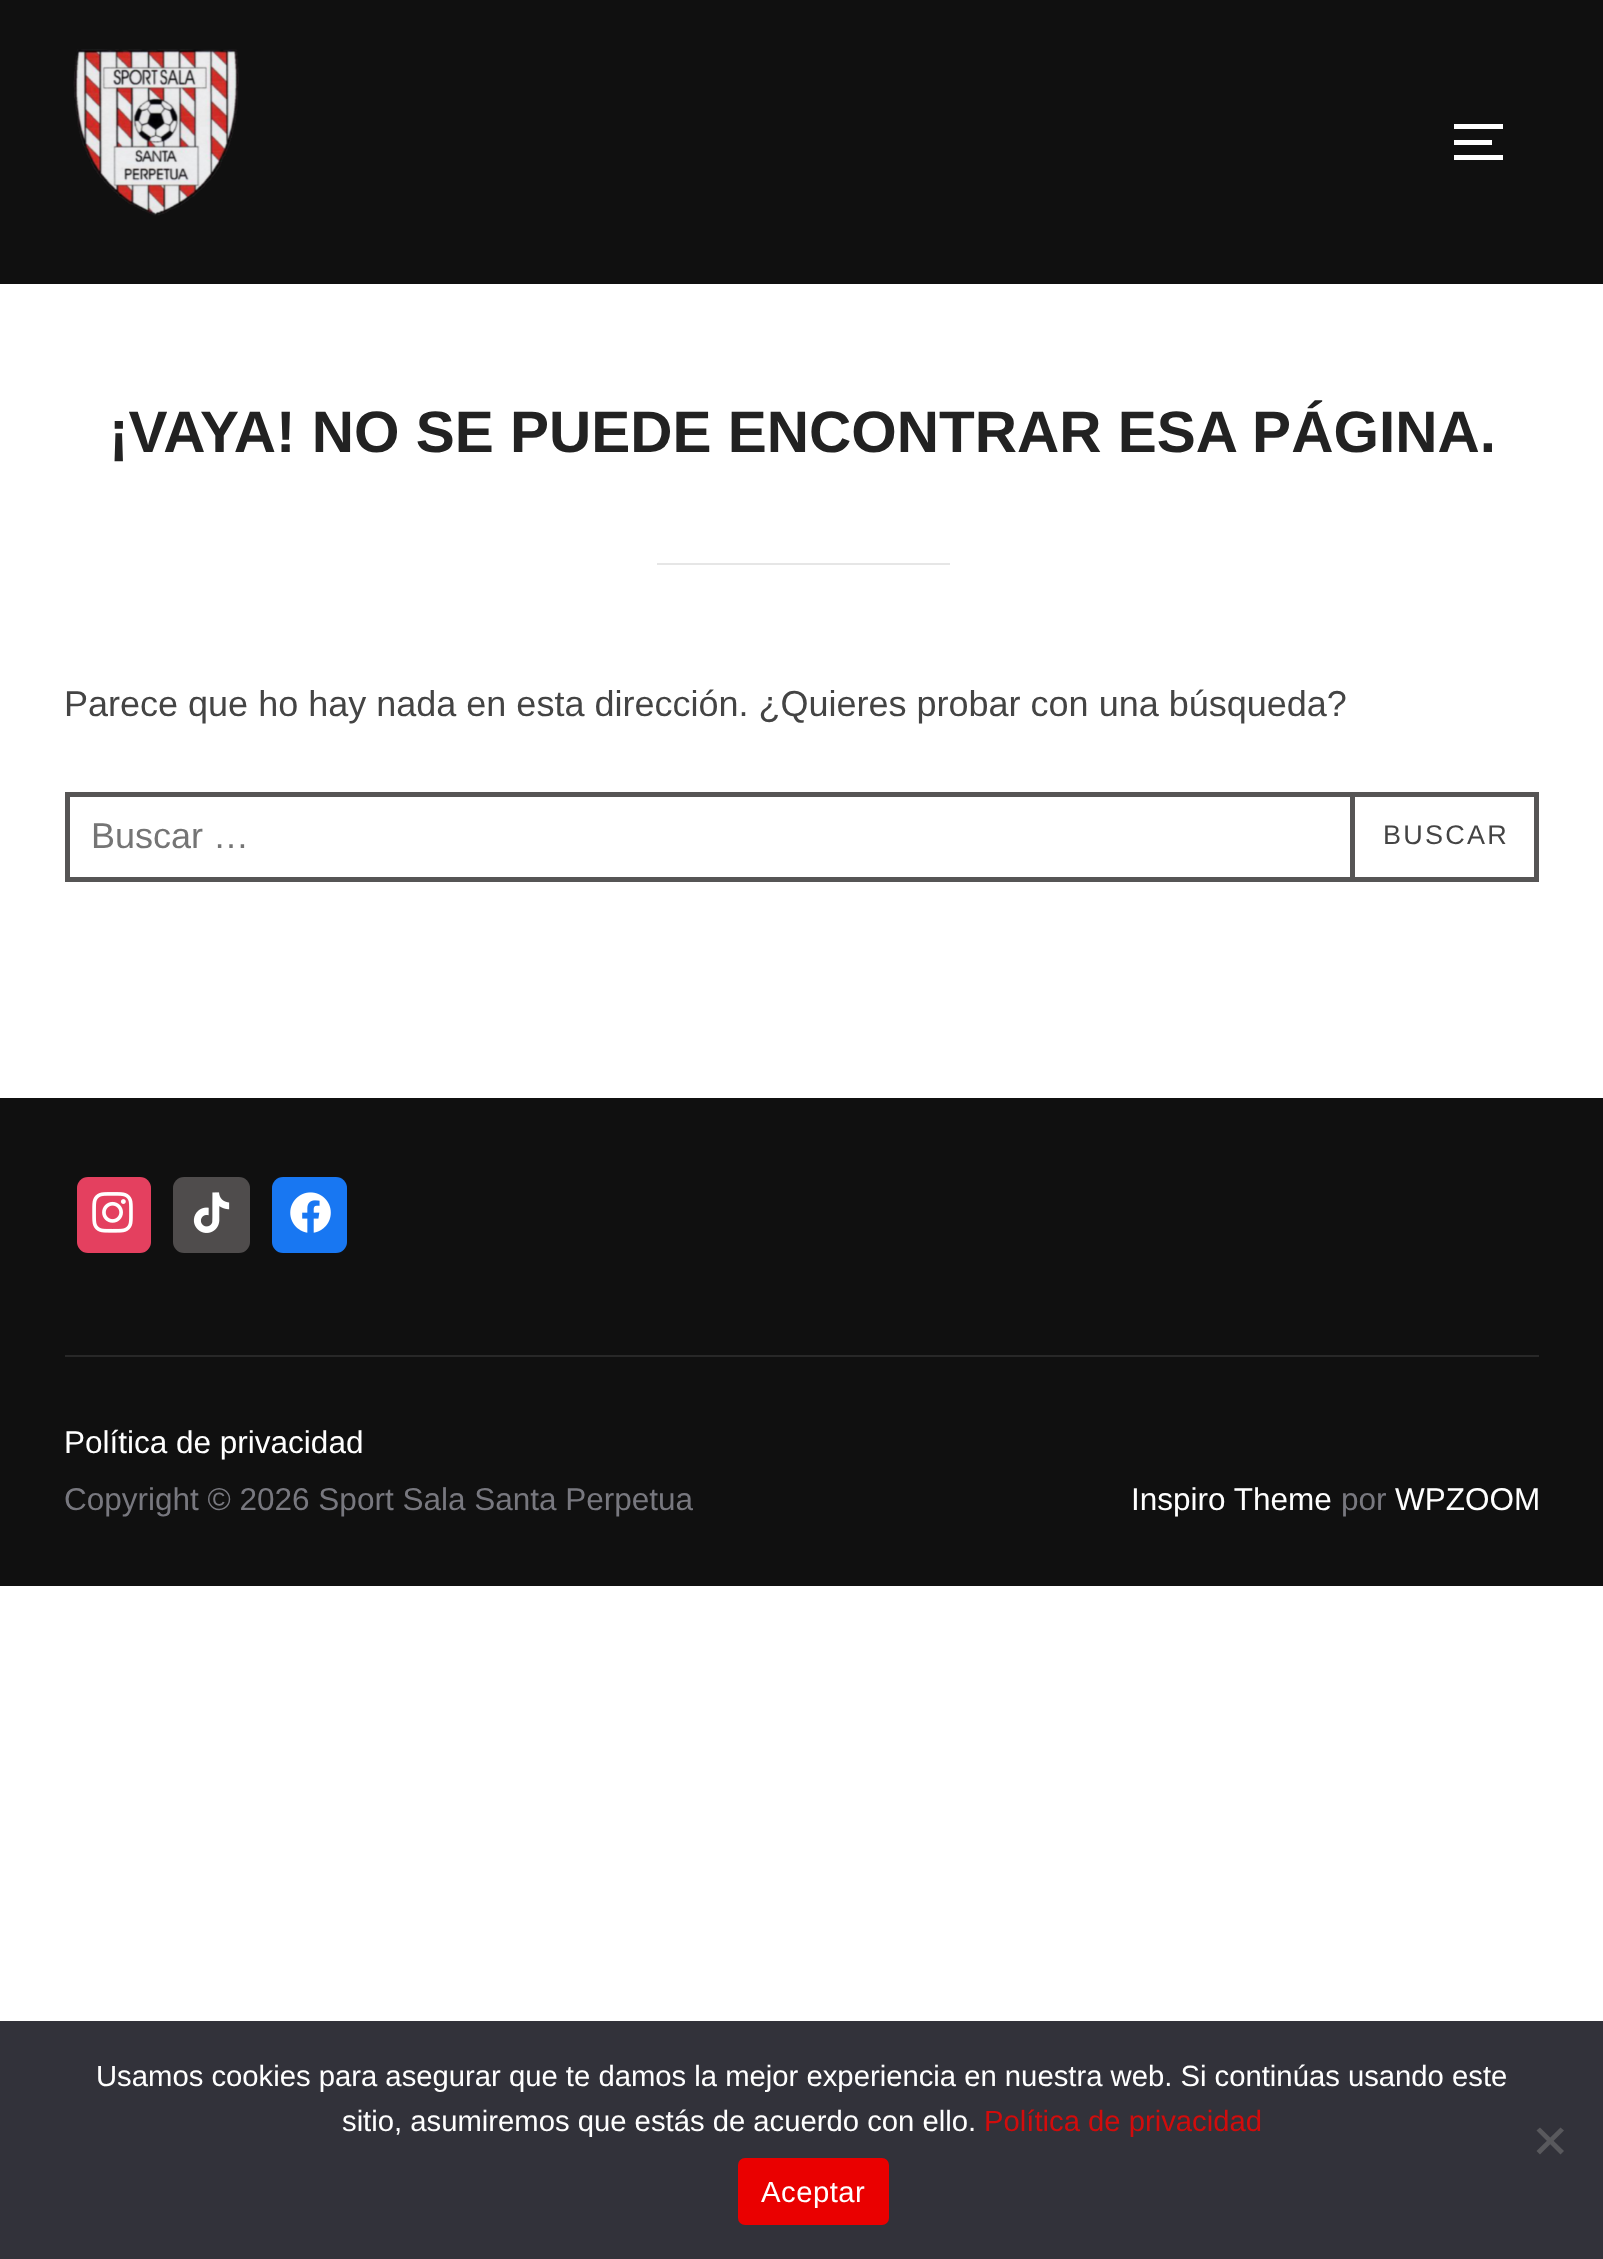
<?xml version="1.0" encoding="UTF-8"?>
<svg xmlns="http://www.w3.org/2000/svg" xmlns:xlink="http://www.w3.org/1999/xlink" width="1603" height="2259">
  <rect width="100%" height="100%" fill="#ffffff" />
  <rect width="1603" height="284" fill="#101010" />
  <image x="73" y="49" width="166" height="167" xlink:href="image1.png" />
  <rect x="1454" y="124" width="49" height="5" fill="#ffffff" />
  <rect x="1454" y="140" width="38" height="5" fill="#ffffff" />
  <rect x="1454" y="155" width="49" height="5" fill="#ffffff" />
  <rect x="657" y="563" width="293" height="2" fill="#e6e6e6" />
  <rect x="67.5" y="794.5" width="1469" height="85" fill="none" stroke="#565555" stroke-width="5" />
  <rect x="1352.5" y="794.5" width="184" height="85" fill="none" stroke="#565555" stroke-width="5" />
  <rect y="1098" width="1603" height="488" fill="#101010" />
  <rect x="77" y="1177" width="74" height="76" rx="11" fill="#e4405f" />
  <image x="92" y="1192" width="41" height="41" xlink:href="image2.png" />
  <rect x="173" y="1177" width="77" height="76" rx="11" fill="#4f4c4c" />
  <image x="193" y="1192" width="37" height="41" xlink:href="image3.png" />
  <rect x="272" y="1177" width="75" height="76" rx="11" fill="#1877f2" />
  <image x="290" y="1192" width="41" height="41" xlink:href="image4.png" />
  <rect x="65" y="1355" width="1474" height="2" fill="#282828" />
  <rect y="2021" width="1603" height="238" fill="#32323a" />
  <path d="M 1560.5 2127.5 l 3.5 3 l -24 24 l -3.5 -3.5 z" fill="#59595d" />
  <path d="M 1536.5 2130.5 l 3.5 -3 l 24 23.5 l -3.5 3.5 z" fill="#59595d" />
  <rect x="738" y="2158" width="151" height="67" rx="7" fill="#ea0000" />
  <text x="109" y="452" style="font-family: Liberation Sans; font-size: 58.5px; font-weight: bold; fill: #222222">¡VAYA! NO SE PUEDE ENCONTRAR ESA PÁGINA.</text>
  <text x="64" y="716" style="font-family: Liberation Sans; font-size: 36px; fill: #444444">Parece que ho hay nada en esta dirección. ¿Quieres probar con una búsqueda?</text>
  <text x="91" y="848" style="font-family: Liberation Sans; font-size: 36px; fill: #757575">Buscar …</text>
  <text x="1383" y="844" style="font-family: Liberation Sans; font-size: 27px; letter-spacing: 2.25px; fill: #444444">BUSCAR</text>
  <text x="64" y="1453" style="font-family: Liberation Sans; font-size: 31.5px; fill: #ffffff">Política de privacidad</text>
  <text x="64" y="1510" style="font-family: Liberation Sans; font-size: 31.5px; fill: #78787f">Copyright © 2026 Sport Sala Santa Perpetua</text>
  <text x="1131" y="1510" style="font-family: Liberation Sans; font-size: 31.5px; fill: #ffffff">Inspiro Theme</text>
  <text x="1341" y="1510" style="font-family: Liberation Sans; font-size: 31.5px; fill: #78787f">por</text>
  <text x="1395" y="1510" style="font-family: Liberation Sans; font-size: 31.5px; fill: #ffffff">WPZOOM</text>
  <text x="96" y="2086" style="font-family: Liberation Sans; font-size: 29.25px; fill: #ffffff">Usamos cookies para asegurar que te damos la mejor experiencia en nuestra web. Si continúas usando este</text>
  <text x="342" y="2131" style="font-family: Liberation Sans; font-size: 29.25px; fill: #ffffff">sitio, asumiremos que estás de acuerdo con ello.</text>
  <text x="984" y="2131" style="font-family: Liberation Sans; font-size: 29.25px; fill: #d10c0c">Política de privacidad</text>
  <text x="761" y="2202" style="font-family: Liberation Sans; font-size: 29.25px; letter-spacing: 0.5px; fill: #ffffff">Aceptar</text>
</svg>
